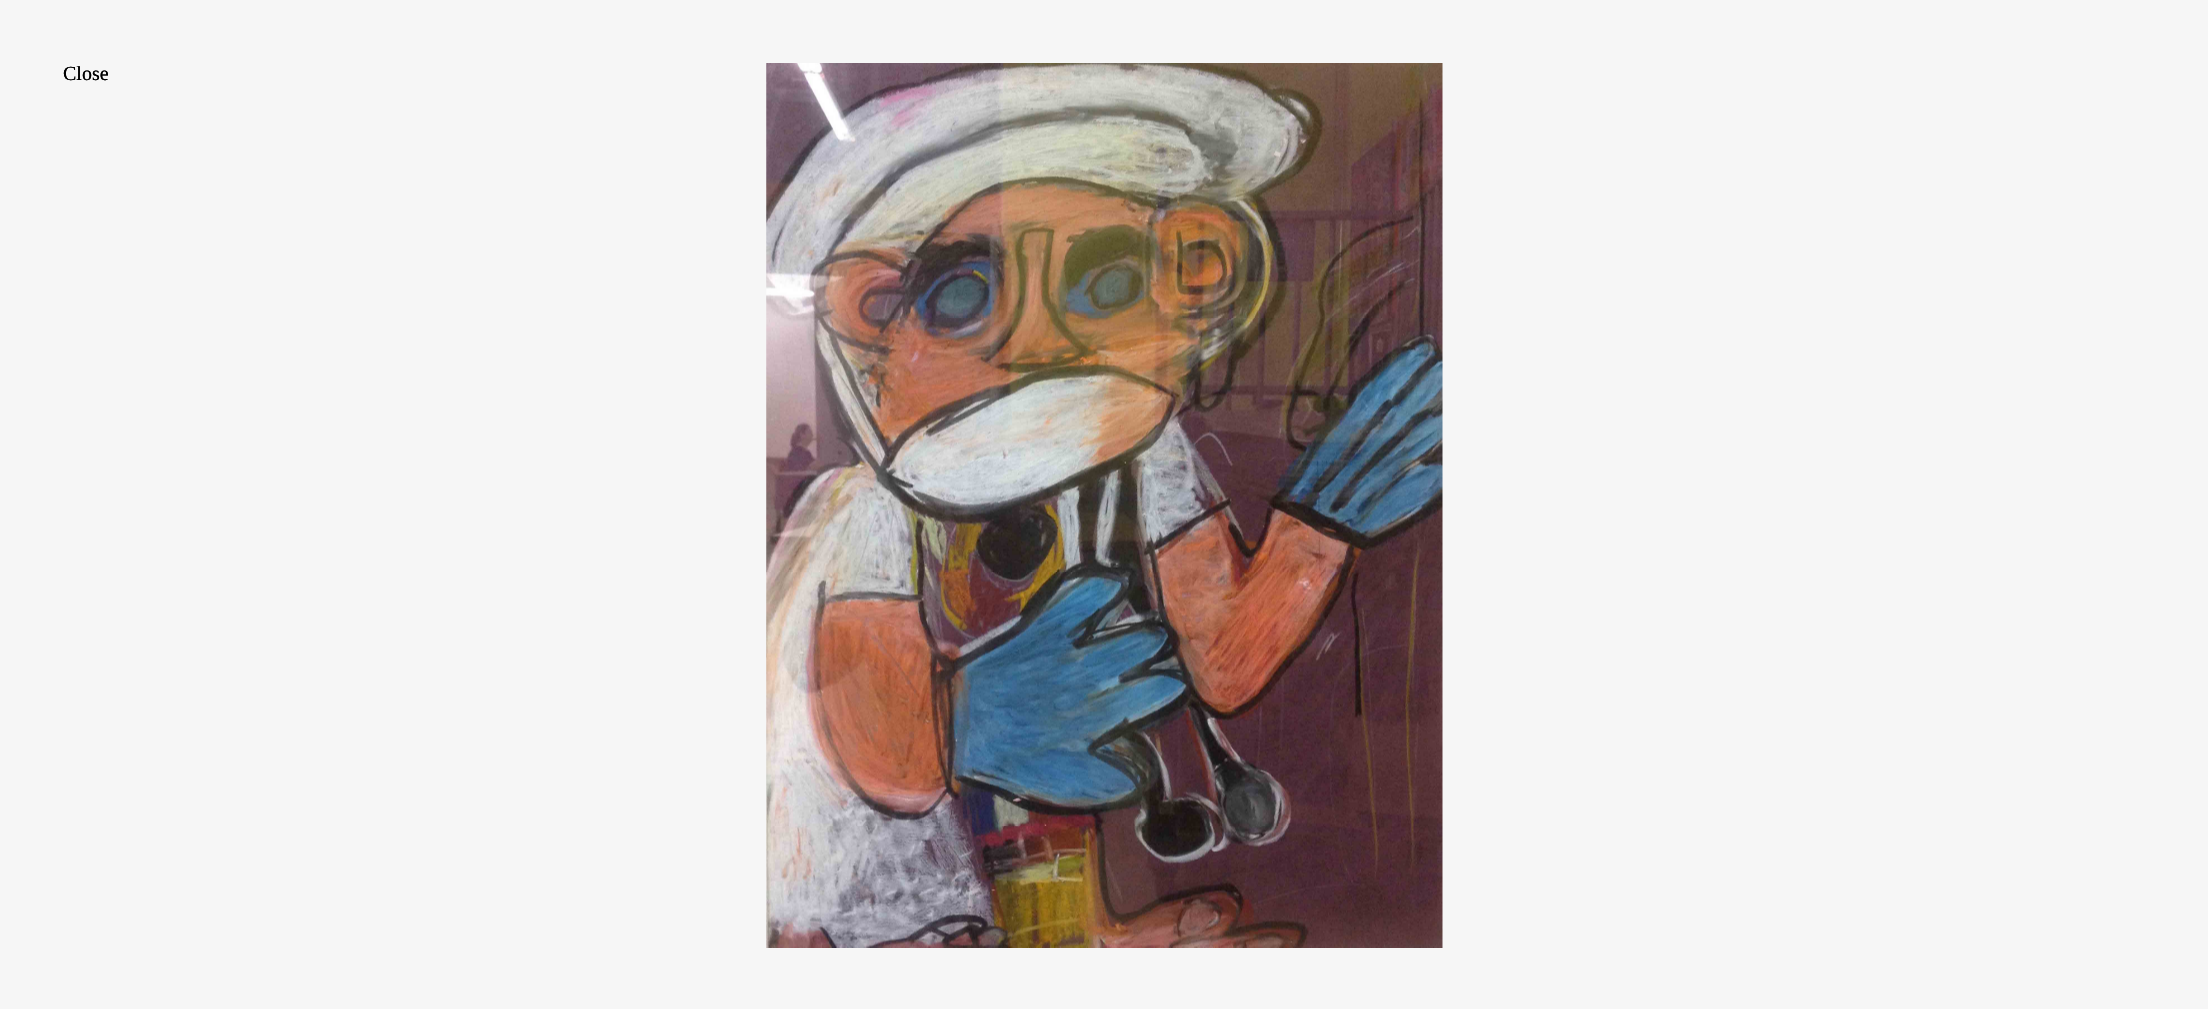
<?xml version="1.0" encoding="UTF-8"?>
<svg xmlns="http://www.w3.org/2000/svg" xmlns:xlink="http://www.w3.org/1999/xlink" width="2208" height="1009">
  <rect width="100%" height="100%" fill="#f6f6f6" />
  <image x="766" y="63" width="677" height="885" xlink:href="image1.png" />
  <text x="63" y="80" style="font-family: Liberation Serif; font-size: 20px; fill: #000000">Close</text>
  <text x="63" y="80" style="font-family: Liberation Serif; font-size: 20px; fill: #000000">Close</text>
</svg>
